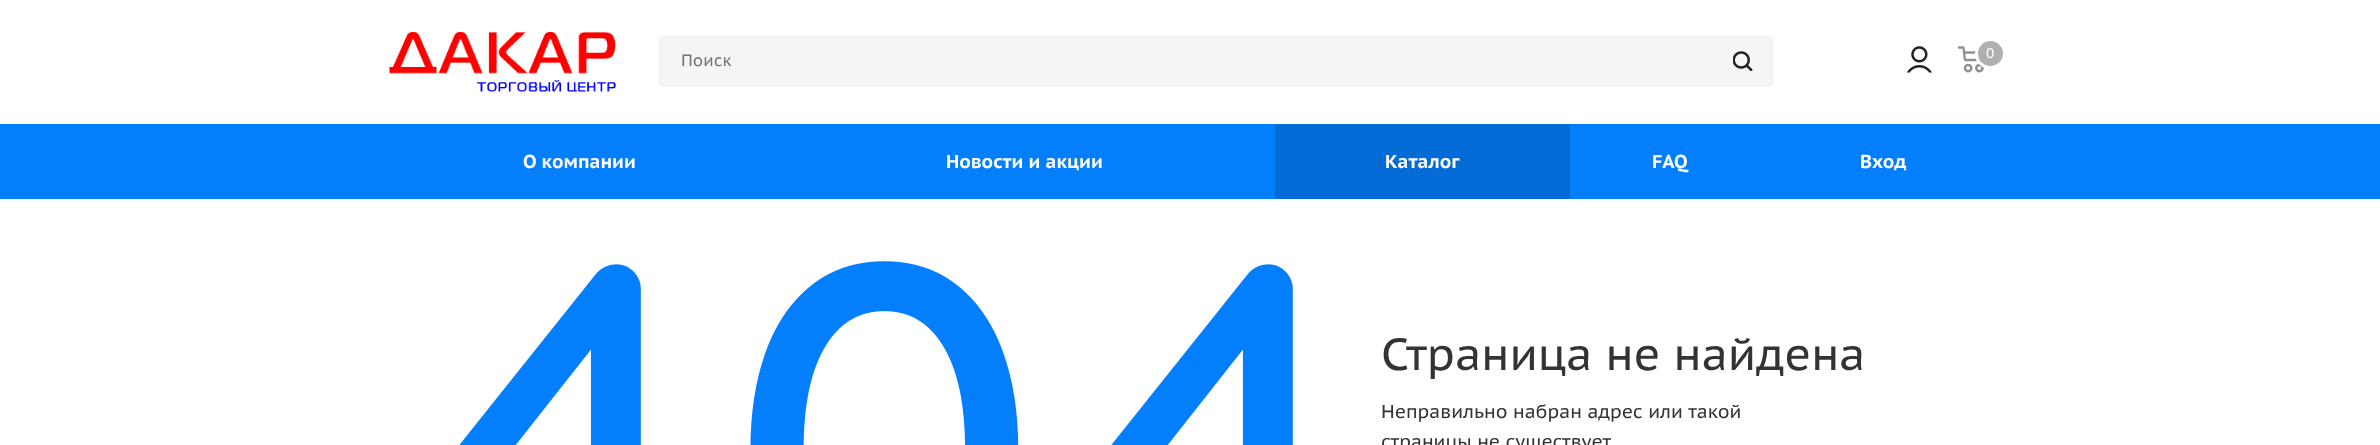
<?xml version="1.0" encoding="UTF-8"?>
<svg xmlns="http://www.w3.org/2000/svg" xmlns:xlink="http://www.w3.org/1999/xlink" width="2380" height="445">
  <rect width="100%" height="100%" fill="#ffffff" />
  <image x="389" y="32" width="227" height="60" xlink:href="image1.png" />
  <rect x="659.5" y="36.5" width="1113" height="49" rx="3.5" fill="#f5f5f5" stroke="#eeeeee" />
  <image x="1733" y="51" width="20" height="20" xlink:href="image2.png" />
  <image x="1906" y="46" width="26" height="27" xlink:href="image3.png" />
  <image x="1958" y="46" width="26" height="27" xlink:href="image4.png" />
  <circle cx="1990" cy="54" r="13.5" fill="none" stroke="#ffffff" stroke-width="3" />
  <circle cx="1990.5" cy="53.5" r="12.5" fill="#b0b0b0" />
  <rect y="124" width="2380" height="75" fill="#037ffd" />
  <rect x="1275" y="124" width="295" height="75" fill="#026bd6" />
  <image x="459" y="261" width="834" height="184" xlink:href="image5.png" />
  <text x="681" y="66" style="font-family: PT Sans Caption; font-size: 16.5px; fill: #757575">Поиск</text>
  <text x="1986" y="58" style="font-family: PT Sans Caption; font-size: 14px; fill: #ffffff">0</text>
  <text x="523" y="168" style="font-family: PT Sans Caption; font-size: 18.75px; font-weight: bold; fill: #ffffff">О компании</text>
  <text x="946" y="168" style="font-family: PT Sans Caption; font-size: 18.75px; font-weight: bold; fill: #ffffff">Новости и акции</text>
  <text x="1385" y="168" style="font-family: PT Sans Caption; font-size: 18.75px; font-weight: bold; fill: #ffffff">Каталог</text>
  <text x="1652" y="168" style="font-family: PT Sans Caption; font-size: 18.75px; font-weight: bold; fill: #ffffff">FAQ</text>
  <text x="1860" y="168" style="font-family: PT Sans Caption; font-size: 18.75px; font-weight: bold; fill: #ffffff">Вход</text>
  <text x="1381" y="370" style="font-family: PT Sans Caption; font-size: 45px; fill: #333333">Страница не найдена</text>
  <text x="1381" y="418" style="font-family: PT Sans Caption; font-size: 18.75px; fill: #333333">Неправильно набран адрес или такой</text>
  <text x="1381" y="448" style="font-family: PT Sans Caption; font-size: 18.75px; fill: #333333">страницы не существует</text>
</svg>
